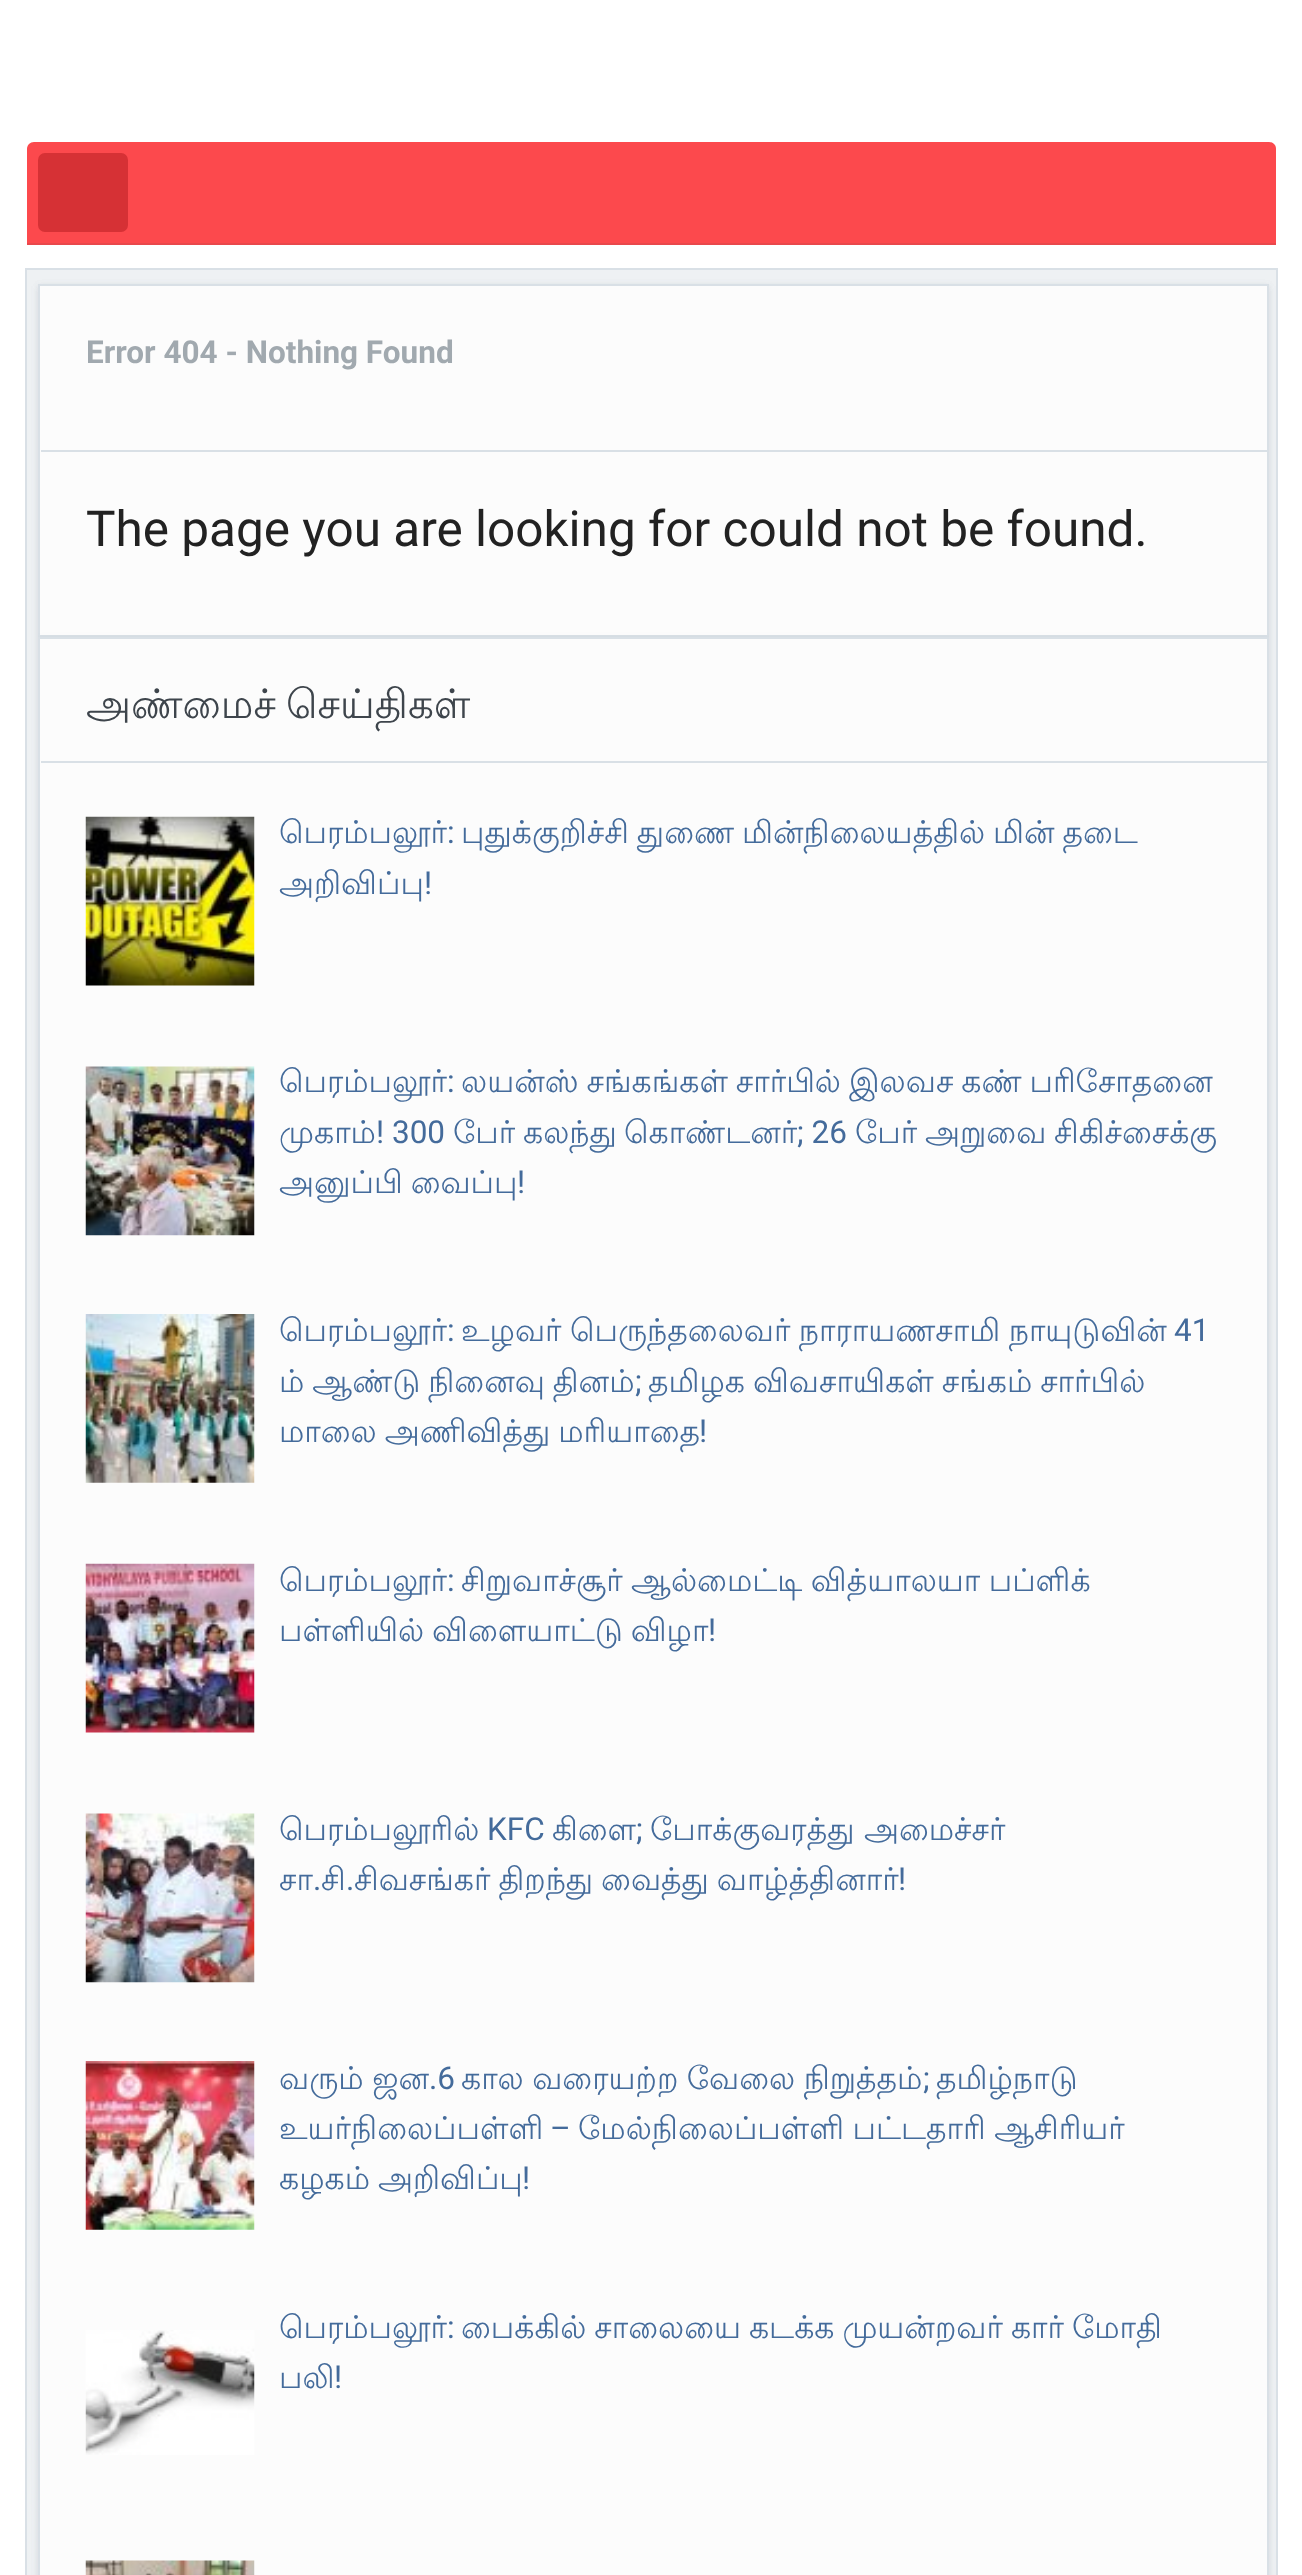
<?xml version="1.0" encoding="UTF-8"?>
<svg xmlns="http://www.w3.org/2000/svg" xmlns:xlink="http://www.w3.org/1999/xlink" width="1302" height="2575">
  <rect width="100%" height="100%" fill="#ffffff" />
  <path d="M 34 142 h 1235 c 4 0 7 3 7 7 v 96 h -1249 v -96 c 0 -4 3 -7 7 -7 z" fill="#fc494d" />
  <rect x="27" y="243" width="1249" height="2" fill="#e9484c" />
  <rect x="38" y="153" width="90" height="79" rx="7" fill="#d63135" />
  <rect x="26" y="269" width="1251" height="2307" fill="#eef1f3" stroke="#d9e0e6" stroke-width="2" />
  <rect x="38" y="286" width="1231" height="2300" fill="#4a5f74" fill-opacity="0.08" filter="blur(3.5px)" />
  <rect x="38" y="286" width="1231" height="353" fill="#4a5f74" fill-opacity="0.08" filter="blur(3.5px)" />
  <rect x="39" y="285" width="1229" height="351" fill="#fcfcfc" stroke="#d9e0e6" stroke-width="2" />
  <rect x="41" y="450" width="1226" height="2" fill="#d9e0e6" />
  <rect x="38" y="639" width="1231" height="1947" fill="#4a5f74" fill-opacity="0.08" filter="blur(3.5px)" />
  <rect x="39" y="638" width="1229" height="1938" fill="#fcfcfc" stroke="#d9e0e6" stroke-width="2" />
  <rect x="41" y="761" width="1226" height="2" fill="#d9e0e6" />
  <image x="85" y="816" width="170" height="170" xlink:href="image1.png" />
  <image x="85" y="1066" width="170" height="170" xlink:href="image2.png" />
  <image x="85" y="1314" width="170" height="169" xlink:href="image3.png" />
  <image x="85" y="1563" width="170" height="170" xlink:href="image4.png" />
  <image x="85" y="1813" width="170" height="170" xlink:href="image5.png" />
  <image x="85" y="2061" width="170" height="169" xlink:href="image6.png" />
  <image x="85" y="2330" width="170" height="125" xlink:href="image7.png" />
  <image x="85" y="2560" width="170" height="15" xlink:href="image8.png" />
  <text x="86" y="363" style="font-family: Roboto; font-size: 31.5px; font-weight: bold; fill: #a1a9af">Error 404 - Nothing Found</text>
  <text x="86" y="546" style="font-family: Roboto; font-size: 49.5px; fill: #222222">The page you are looking for could not be found.</text>
  <text x="86" y="718" word-spacing="-2" style="font-family: Lohit Tamil; font-size: 40.5px; fill: #3e454c">அண்மைச் செய்திகள்</text>
  <text x="279" y="843" style="font-family: Lohit Tamil; font-size: 31.5px; fill: #446b9b">பெரம்பலூர்</text>
  <text x="447" y="843" style="font-family: Roboto; font-size: 31.5px; fill: #446b9b">:</text>
  <text x="461" y="843" word-spacing="-1.5" style="font-family: Lohit Tamil; font-size: 31.5px; fill: #446b9b">புதுக்குறிச்சி துணை மின்நிலையத்தில் மின் தடை</text>
  <text x="279" y="894" style="font-family: Lohit Tamil; font-size: 31.5px; fill: #446b9b">அறிவிப்பு</text>
  <text x="424" y="894" style="font-family: Roboto; font-size: 31.5px; fill: #446b9b">!</text>
  <text x="279" y="1092" style="font-family: Lohit Tamil; font-size: 31.5px; fill: #446b9b">பெரம்பலூர்</text>
  <text x="447" y="1092" style="font-family: Roboto; font-size: 31.5px; fill: #446b9b">:</text>
  <text x="461" y="1092" word-spacing="-1.5" style="font-family: Lohit Tamil; font-size: 31.5px; fill: #446b9b">லயன்ஸ் சங்கங்கள் சார்பில் இலவச கண் பரிசோதனை</text>
  <text x="279" y="1143" style="font-family: Lohit Tamil; font-size: 31.5px; fill: #446b9b">முகாம்</text>
  <text x="376" y="1143" style="font-family: Roboto; font-size: 31.5px; fill: #446b9b">! 300</text>
  <text x="453" y="1143" style="font-family: Lohit Tamil; font-size: 31.5px; fill: #446b9b">பேர்</text>
  <text x="523" y="1143" style="font-family: Lohit Tamil; font-size: 31.5px; fill: #446b9b">கலந்து</text>
  <text x="624" y="1143" style="font-family: Lohit Tamil; font-size: 31.5px; fill: #446b9b">கொண்டனர்</text>
  <text x="797" y="1143" style="font-family: Roboto; font-size: 31.5px; fill: #446b9b">; 26</text>
  <text x="855" y="1143" style="font-family: Lohit Tamil; font-size: 31.5px; fill: #446b9b">பேர்</text>
  <text x="925" y="1143" style="font-family: Lohit Tamil; font-size: 31.5px; fill: #446b9b">அறுவை</text>
  <text x="1054" y="1143" style="font-family: Lohit Tamil; font-size: 31.5px; fill: #446b9b">சிகிச்சைக்கு</text>
  <text x="279" y="1193" word-spacing="-1.5" style="font-family: Lohit Tamil; font-size: 31.5px; fill: #446b9b">அனுப்பி வைப்பு</text>
  <text x="517" y="1193" style="font-family: Roboto; font-size: 31.5px; fill: #446b9b">!</text>
  <text x="279" y="1341" style="font-family: Lohit Tamil; font-size: 31.5px; fill: #446b9b">பெரம்பலூர்</text>
  <text x="447" y="1341" style="font-family: Roboto; font-size: 31.5px; fill: #446b9b">:</text>
  <text x="461" y="1341" word-spacing="-1" style="font-family: Lohit Tamil; font-size: 31.5px; fill: #446b9b">உழவர் பெருந்தலைவர் நாராயணசாமி நாயுடுவின்</text>
  <text x="1174" y="1341" style="font-family: Roboto; font-size: 31.5px; fill: #446b9b">41</text>
  <text x="279" y="1392" word-spacing="-1.5" style="font-family: Lohit Tamil; font-size: 31.5px; fill: #446b9b">ம் ஆண்டு நினைவு தினம்</text>
  <text x="635" y="1392" style="font-family: Roboto; font-size: 31.5px; fill: #446b9b">;</text>
  <text x="648" y="1392" word-spacing="-1.5" style="font-family: Lohit Tamil; font-size: 31.5px; fill: #446b9b">தமிழக விவசாயிகள் சங்கம் சார்பில்</text>
  <text x="279" y="1442" word-spacing="-1.5" style="font-family: Lohit Tamil; font-size: 31.5px; fill: #446b9b">மாலை அணிவித்து மரியாதை</text>
  <text x="699" y="1442" style="font-family: Roboto; font-size: 31.5px; fill: #446b9b">!</text>
  <text x="279" y="1591" style="font-family: Lohit Tamil; font-size: 31.5px; fill: #446b9b">பெரம்பலூர்</text>
  <text x="447" y="1591" style="font-family: Roboto; font-size: 31.5px; fill: #446b9b">:</text>
  <text x="461" y="1591" word-spacing="-1" style="font-family: Lohit Tamil; font-size: 31.5px; fill: #446b9b">சிறுவாச்சூர் ஆல்மைட்டி வித்யாலயா பப்ளிக்</text>
  <text x="279" y="1641" word-spacing="-1.5" style="font-family: Lohit Tamil; font-size: 31.5px; fill: #446b9b">பள்ளியில் விளையாட்டு விழா</text>
  <text x="708" y="1641" style="font-family: Roboto; font-size: 31.5px; fill: #446b9b">!</text>
  <text x="279" y="1840" style="font-family: Lohit Tamil; font-size: 31.5px; fill: #446b9b">பெரம்பலூரில்</text>
  <text x="487" y="1840" style="font-family: Roboto; font-size: 31.5px; fill: #446b9b">KFC</text>
  <text x="552" y="1840" style="font-family: Lohit Tamil; font-size: 31.5px; fill: #446b9b">கிளை</text>
  <text x="636" y="1840" style="font-family: Roboto; font-size: 31.5px; fill: #446b9b">;</text>
  <text x="650" y="1840" style="font-family: Lohit Tamil; font-size: 31.5px; fill: #446b9b">போக்குவரத்து அமைச்சர்</text>
  <text x="279" y="1890" style="font-family: Lohit Tamil; font-size: 31.5px; fill: #446b9b">சா</text>
  <text x="313" y="1890" style="font-family: Roboto; font-size: 31.5px; fill: #446b9b">.</text>
  <text x="321" y="1890" style="font-family: Lohit Tamil; font-size: 31.5px; fill: #446b9b">சி</text>
  <text x="346" y="1890" style="font-family: Roboto; font-size: 31.5px; fill: #446b9b">.</text>
  <text x="354" y="1890" word-spacing="-1.5" style="font-family: Lohit Tamil; font-size: 31.5px; fill: #446b9b">சிவசங்கர் திறந்து வைத்து வாழ்த்தினார்</text>
  <text x="898" y="1890" style="font-family: Roboto; font-size: 31.5px; fill: #446b9b">!</text>
  <text x="279" y="2089" word-spacing="-1" style="font-family: Lohit Tamil; font-size: 31.5px; fill: #446b9b">வரும் ஜன</text>
  <text x="429" y="2089" style="font-family: Roboto; font-size: 31.5px; fill: #446b9b">.6</text>
  <text x="461" y="2089" word-spacing="-1" style="font-family: Lohit Tamil; font-size: 31.5px; fill: #446b9b">கால வரையற்ற வேலை நிறுத்தம்</text>
  <text x="923" y="2089" style="font-family: Roboto; font-size: 31.5px; fill: #446b9b">;</text>
  <text x="936" y="2089" style="font-family: Lohit Tamil; font-size: 31.5px; fill: #446b9b">தமிழ்நாடு</text>
  <text x="279" y="2139" style="font-family: Lohit Tamil; font-size: 31.5px; fill: #446b9b">உயர்நிலைப்பள்ளி</text>
  <text x="550" y="2139" style="font-family: Roboto; font-size: 31.5px; fill: #446b9b">–</text>
  <text x="578" y="2139" word-spacing="-1" style="font-family: Lohit Tamil; font-size: 31.5px; fill: #446b9b">மேல்நிலைப்பள்ளி பட்டதாரி ஆசிரியர்</text>
  <text x="279" y="2189" word-spacing="-1.5" style="font-family: Lohit Tamil; font-size: 31.5px; fill: #446b9b">கழகம் அறிவிப்பு</text>
  <text x="522" y="2189" style="font-family: Roboto; font-size: 31.5px; fill: #446b9b">!</text>
  <text x="279" y="2338" style="font-family: Lohit Tamil; font-size: 31.5px; fill: #446b9b">பெரம்பலூர்</text>
  <text x="447" y="2338" style="font-family: Roboto; font-size: 31.5px; fill: #446b9b">:</text>
  <text x="461" y="2338" word-spacing="-1.5" style="font-family: Lohit Tamil; font-size: 31.5px; fill: #446b9b">பைக்கில் சாலையை கடக்க முயன்றவர் கார் மோதி</text>
  <text x="279" y="2388" style="font-family: Lohit Tamil; font-size: 31.5px; fill: #446b9b">பலி</text>
  <text x="334" y="2388" style="font-family: Roboto; font-size: 31.5px; fill: #446b9b">!</text>
</svg>
